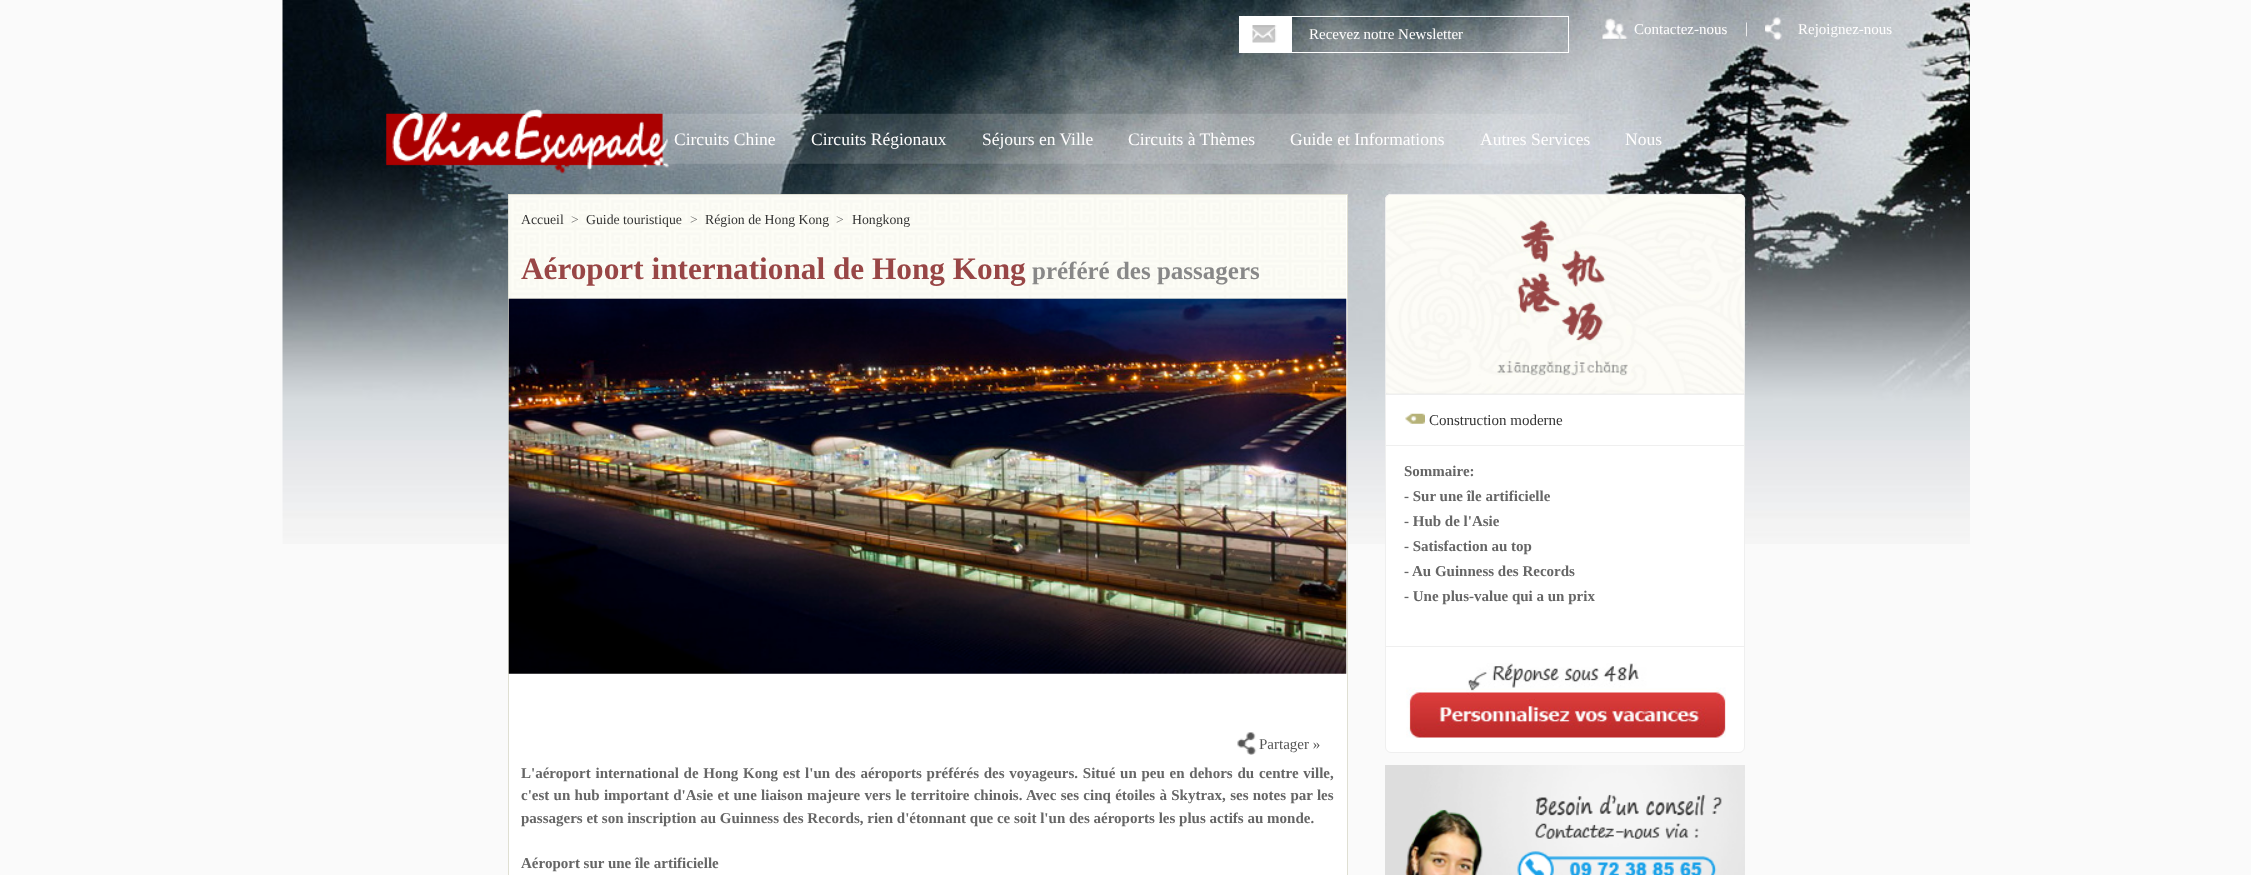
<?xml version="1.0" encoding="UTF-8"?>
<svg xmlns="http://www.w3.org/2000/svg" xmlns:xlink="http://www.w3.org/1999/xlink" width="2251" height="875">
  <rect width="100%" height="100%" fill="#fafafa" />
  <image x="282" y="0" width="1688" height="544" xlink:href="image1.png" />
  <rect x="1239" y="16" width="52" height="37" fill="#ffffff" />
  <image x="1252" y="25" width="25" height="18" xlink:href="image2.png" />
  <rect x="1291.5" y="16.5" width="277" height="36" fill="none" stroke="#ffffff" />
  <image x="1602" y="18" width="26" height="21" xlink:href="image3.png" />
  <image x="1765" y="17" width="17" height="23" xlink:href="image4.png" />
  <image x="658" y="113" width="923" height="51" xlink:href="image6.png" />
  <image x="386" y="108" width="284" height="66" xlink:href="image5.png" />
  <rect x="508.5" y="194.5" width="839" height="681" fill="#ffffff" stroke="#dfdfd2" />
  <image x="508" y="195" width="838" height="104" xlink:href="image7.png" />
  <rect x="509" y="298" width="837" height="1" fill="#e9e8de" />
  <image x="508" y="298" width="839" height="376" xlink:href="image8.png" />
  <image x="1237" y="732" width="20" height="23" xlink:href="image9.png" />
  <image x="1385" y="193" width="360" height="201" xlink:href="image10.png" />
  <path d="M 1391 194 h 348 c 3 0 6 3 6 6 v 194 h -360 v -194 c 0 -3 3 -6 6 -6 z m 0 1 h 348 c 3 0 5 2 5 5 v 194 h -358 v -194 c 0 -3 2 -5 5 -5 z" fill="#efefef" fill-rule="evenodd" />
  <image x="1386" y="220" width="358" height="174" xlink:href="image11.png" />
  <path d="M 1385.5 394.5 h 359 v 352.5 c 0 3 -2.5 5.5 -5.5 5.5 h -348 c -3 0 -5.5 -2.5 -5.5 -5.5 z" fill="#ffffff" stroke="#efefef" />
  <rect x="1386" y="445" width="358" height="1" fill="#efefef" />
  <image x="1405" y="413" width="20" height="11" xlink:href="image12.png" />
  <rect x="1386" y="646" width="358" height="1" fill="#efefef" />
  <image x="1406" y="663" width="320" height="75" xlink:href="image13.png" />
  <image x="1385" y="765" width="360" height="110" xlink:href="image14.png" />
  <image x="1405" y="794" width="317" height="81" xlink:href="image15.png" />
  <text x="1309" y="39" style="font-family: Liberation Serif; font-size: 15px; fill: #fffefe">Recevez notre Newsletter</text>
  <text x="1634" y="34" style="font-family: Liberation Serif; font-size: 15px; fill: #fffefe">Contactez-nous</text>
  <text x="1745" y="33" style="font-family: Liberation Serif; font-size: 15px; fill: #fffefe">|</text>
  <text x="1798" y="34" style="font-family: Liberation Serif; font-size: 15px; fill: #fffefe">Rejoignez-nous</text>
  <text x="674" y="145" style="font-family: Liberation Serif; font-size: 17.5px; fill: #fffefe">Circuits Chine</text>
  <text x="811" y="145" style="font-family: Liberation Serif; font-size: 17.5px; fill: #fffefe">Circuits Régionaux</text>
  <text x="982" y="145" style="font-family: Liberation Serif; font-size: 17.5px; fill: #fffefe">Séjours en Ville</text>
  <text x="1128" y="145" style="font-family: Liberation Serif; font-size: 17.5px; fill: #fffefe">Circuits à Thèmes</text>
  <text x="1290" y="145" style="font-family: Liberation Serif; font-size: 17.5px; fill: #fffefe">Guide et Informations</text>
  <text x="1480" y="145" style="font-family: Liberation Serif; font-size: 17.5px; fill: #fffefe">Autres Services</text>
  <text x="1625" y="145" style="font-family: Liberation Serif; font-size: 17.5px; fill: #fffefe">Nous</text>
  <text x="521" y="224" style="font-family: Liberation Serif; font-size: 13.75px; fill: #333333">Accueil</text>
  <text x="571" y="224" style="font-family: Liberation Serif; font-size: 13.75px; fill: #666666">&gt;</text>
  <text x="586" y="224" style="font-family: Liberation Serif; font-size: 13.75px; fill: #333333">Guide touristique</text>
  <text x="690" y="224" style="font-family: Liberation Serif; font-size: 13.75px; fill: #666666">&gt;</text>
  <text x="705" y="224" style="font-family: Liberation Serif; font-size: 13.75px; fill: #333333">Région de Hong Kong</text>
  <text x="836" y="224" style="font-family: Liberation Serif; font-size: 13.75px; fill: #666666">&gt;</text>
  <text x="852" y="224" style="font-family: Liberation Serif; font-size: 13.75px; fill: #333333">Hongkong</text>
  <text x="521" y="279" style="font-family: Liberation Serif; font-size: 31.25px; font-weight: bold; fill: #984646">Aéroport international de Hong Kong</text>
  <text x="1032" y="279" style="font-family: Liberation Serif; font-size: 25px; font-weight: bold; fill: #888888">préféré des passagers</text>
  <text x="1259" y="749" style="font-family: Liberation Serif; font-size: 15px; fill: #555555">Partager »</text>
  <text x="521" y="778" word-spacing="1" style="font-family: Liberation Serif; font-size: 15px; font-weight: bold; fill: #666666">L'aéroport international de Hong Kong est l'un des aéroports préférés des voyageurs. Situé un peu en dehors du centre ville,</text>
  <text x="521" y="800" word-spacing="0.55" style="font-family: Liberation Serif; font-size: 15px; font-weight: bold; fill: #666666">c'est un hub important d'Asie et une liaison majeure vers le territoire chinois. Avec ses cinq étoiles à Skytrax, ses notes par les</text>
  <text x="521" y="823" style="font-family: Liberation Serif; font-size: 15px; font-weight: bold; fill: #666666">passagers et son inscription au Guinness des Records, rien d'étonnant que ce soit l'un des aéroports les plus actifs au monde.</text>
  <text x="521" y="868" style="font-family: Liberation Serif; font-size: 15px; font-weight: bold; fill: #666666">Aéroport sur une île artificielle</text>
  <text x="1429" y="425" style="font-family: Liberation Serif; font-size: 15px; fill: #333333">Construction moderne</text>
  <text x="1404" y="476" style="font-family: Liberation Serif; font-size: 15px; font-weight: bold; fill: #666666">Sommaire:</text>
  <text x="1404" y="501" style="font-family: Liberation Serif; font-size: 15px; font-weight: bold; fill: #666666">- Sur une île artificielle</text>
  <text x="1404" y="526" style="font-family: Liberation Serif; font-size: 15px; font-weight: bold; fill: #666666">- Hub de l'Asie</text>
  <text x="1404" y="551" style="font-family: Liberation Serif; font-size: 15px; font-weight: bold; fill: #666666">- Satisfaction au top</text>
  <text x="1404" y="576" style="font-family: Liberation Serif; font-size: 15px; font-weight: bold; fill: #666666">-</text>
  <text x="1412" y="576" style="font-family: Liberation Serif; font-size: 15px; font-weight: bold; fill: #666666">Au Guinness des Records</text>
  <text x="1404" y="601" style="font-family: Liberation Serif; font-size: 15px; font-weight: bold; fill: #666666">- Une plus-value qui a un prix</text>
</svg>
